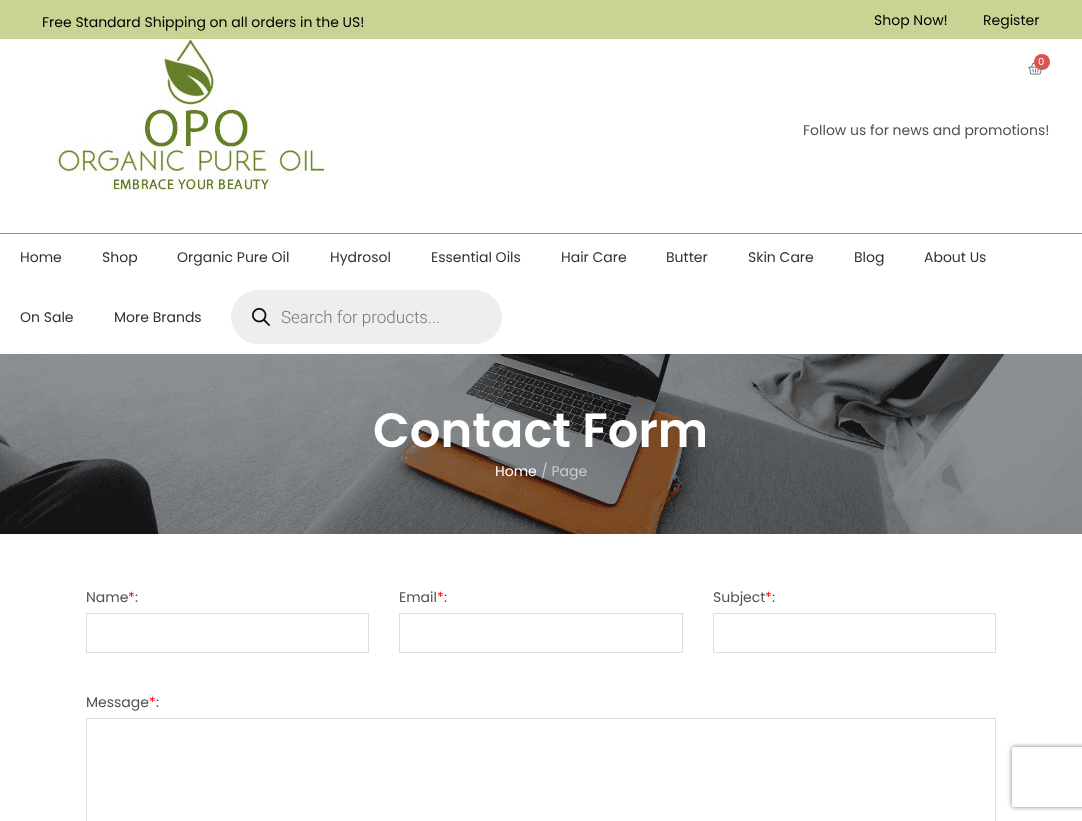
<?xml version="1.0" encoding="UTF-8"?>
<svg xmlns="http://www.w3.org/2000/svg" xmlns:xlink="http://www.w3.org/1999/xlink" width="1082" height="821">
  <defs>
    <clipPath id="clip1"><path d="M 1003 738 h 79 v 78 h -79 z m 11 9 h 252 c 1 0 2 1 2 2 v 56 c 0 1 -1 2 -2 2 h -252 c -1 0 -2 -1 -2 -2 v -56 c 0 -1 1 -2 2 -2 z" clip-rule="evenodd" /></clipPath>
  </defs>
  <rect width="100%" height="100%" fill="#ffffff" />
  <rect width="1082" height="39" fill="#c7d494" />
  <image x="55" y="39" width="272" height="152" xlink:href="image1.png" />
  <image x="1028" y="63" width="14" height="12" xlink:href="image2.png" />
  <circle cx="1042" cy="62" r="8" fill="#d9534f" />
  <rect y="233" width="1082" height="1" fill="#959f5c" />
  <rect x="231" y="290" width="271" height="54" rx="27" fill="#eeeeee" />
  <image x="252" y="308" width="18" height="18" xlink:href="image3.png" />
  <image x="0" y="354" width="1082" height="180" xlink:href="image4.png" />
  <rect x="86.5" y="613.5" width="282" height="39" fill="none" stroke="#dddddd" />
  <rect x="399.5" y="613.5" width="283" height="39" fill="none" stroke="#dddddd" />
  <rect x="713.5" y="613.5" width="282" height="39" fill="none" stroke="#dddddd" />
  <rect x="86.5" y="718.5" width="909" height="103" fill="none" stroke="#dddddd" />
  <g clip-path="url(#clip1)">
    <rect x="1012" y="747" width="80" height="60" rx="2" fill="#808080" filter="blur(2.5px)" />
  </g>
  <text x="42" y="27" style="font-family: Poppins; font-size: 14px; fill: #000000">Free Standard Shipping on all orders in the US!</text>
  <text x="874" y="25" style="font-family: Poppins; font-size: 14px; fill: #000000">Shop Now!</text>
  <text x="983" y="25" style="font-family: Poppins; font-size: 14px; fill: #000000">Register</text>
  <text x="1038" y="65" style="font-family: Poppins; font-size: 10px; fill: #ffffff">0</text>
  <text x="803" y="135" style="font-family: Poppins; font-size: 14px; fill: #515151">Follow us for news and promotions!</text>
  <text x="20" y="262" style="font-family: Poppins; font-size: 14px; fill: #323232">Home</text>
  <text x="102" y="262" style="font-family: Poppins; font-size: 14px; fill: #323232">Shop</text>
  <text x="177" y="262" style="font-family: Poppins; font-size: 14px; fill: #323232">Organic Pure Oil</text>
  <text x="330" y="262" style="font-family: Poppins; font-size: 14px; fill: #323232">Hydrosol</text>
  <text x="431" y="262" style="font-family: Poppins; font-size: 14px; fill: #323232">Essential Oils</text>
  <text x="561" y="262" style="font-family: Poppins; font-size: 14px; fill: #323232">Hair Care</text>
  <text x="666" y="262" style="font-family: Poppins; font-size: 14px; fill: #323232">Butter</text>
  <text x="748" y="262" style="font-family: Poppins; font-size: 14px; fill: #323232">Skin Care</text>
  <text x="854" y="262" style="font-family: Poppins; font-size: 14px; fill: #323232">Blog</text>
  <text x="924" y="262" style="font-family: Poppins; font-size: 14px; fill: #323232">About Us</text>
  <text x="20" y="322" style="font-family: Poppins; font-size: 14px; fill: #323232">On Sale</text>
  <text x="114" y="322" style="font-family: Poppins; font-size: 14px; fill: #323232">More Brands</text>
  <text x="281" y="323" style="font-family: Roboto; font-size: 17px; font-weight: 300; fill: #777777">Search for products...</text>
  <text x="373" y="447" style="font-family: Poppins; font-size: 48px; font-weight: 600; fill: #ffffff">Contact Form</text>
  <text x="495" y="476" style="font-family: Poppins; font-size: 14px; fill: #ffffff">Home</text>
  <text x="541" y="476" style="font-family: Poppins; font-size: 14px; fill: #cccccc">/ Page</text>
  <text x="86" y="602" style="font-family: Poppins; font-size: 14px; fill: #515151">Name</text>
  <text x="128" y="602" style="font-family: Poppins; font-size: 14px; fill: #ff0000">*</text>
  <text x="135" y="602" style="font-family: Poppins; font-size: 14px; fill: #515151">:</text>
  <text x="399" y="602" style="font-family: Poppins; font-size: 14px; fill: #515151">Email</text>
  <text x="437" y="602" style="font-family: Poppins; font-size: 14px; fill: #ff0000">*</text>
  <text x="444" y="602" style="font-family: Poppins; font-size: 14px; fill: #515151">:</text>
  <text x="713" y="602" style="font-family: Poppins; font-size: 14px; fill: #515151">Subject</text>
  <text x="765" y="602" style="font-family: Poppins; font-size: 14px; fill: #ff0000">*</text>
  <text x="772" y="602" style="font-family: Poppins; font-size: 14px; fill: #515151">:</text>
  <text x="86" y="707" style="font-family: Poppins; font-size: 14px; fill: #515151">Message</text>
  <text x="149" y="707" style="font-family: Poppins; font-size: 14px; fill: #ff0000">*</text>
  <text x="156" y="707" style="font-family: Poppins; font-size: 14px; fill: #515151">:</text>
</svg>
